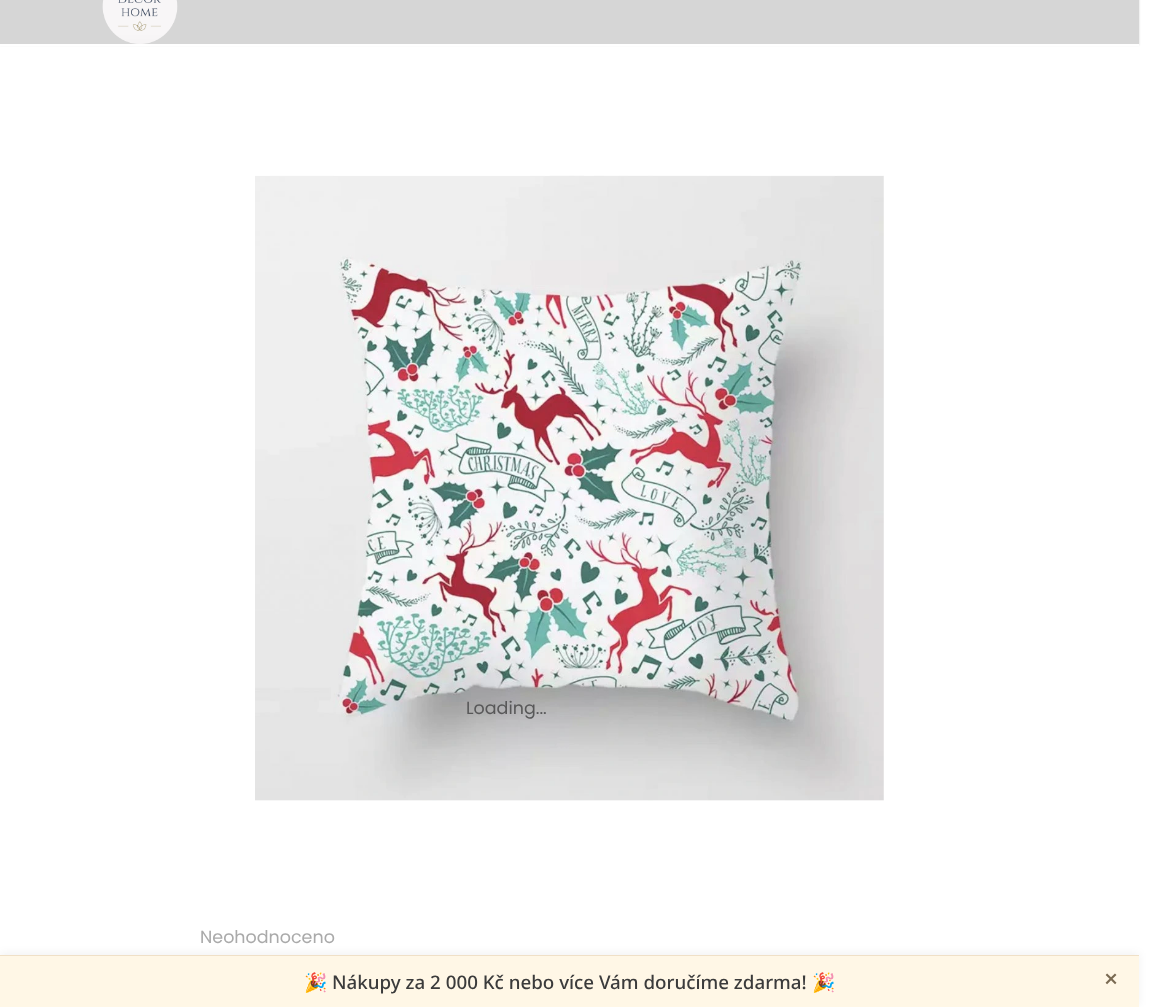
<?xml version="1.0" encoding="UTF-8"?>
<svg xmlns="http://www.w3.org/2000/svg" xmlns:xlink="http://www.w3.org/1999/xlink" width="1157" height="1007">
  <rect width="100%" height="100%" fill="#ffffff" />
  <rect y="-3" width="1139" height="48" fill="#000000" fill-opacity="0.16" filter="blur(1px)" />
  <rect width="1139" height="44" fill="#d6d6d6" />
  <image x="102" y="0" width="76" height="44" xlink:href="image1.png" />
  <rect y="44" width="1139" height="2" fill="#ffffff" />
  <image x="255" y="175" width="629" height="626" xlink:href="image2.png" />
  <rect y="953" width="1139" height="52" fill="#000000" fill-opacity="0.05" filter="blur(4px)" />
  <rect y="956" width="1139" height="51" fill="#fff7e6" />
  <rect y="955" width="1139" height="1" fill="#f0e0c7" />
  <text x="466" y="714" style="font-family: Poppins; font-size: 17.5px; fill: #585859">Loading...</text>
  <text x="200" y="943" style="font-family: Poppins; font-size: 17.5px; fill: #aaaaaa">Neohodnoceno</text>
  <text x="304" y="989" style="font-family: Noto Color Emoji; font-size: 18.75px; fill: #3b3b3b">🎉</text>
  <text x="332" y="989" style="font-family: Noto Sans; font-size: 18.75px; font-weight: 500; fill: #3b3b3b">Nákupy za 2 000 Kč nebo více Vám doručíme zdarma!</text>
  <text x="812" y="989" style="font-family: Noto Color Emoji; font-size: 18.75px; fill: #3b3b3b">🎉</text>
  <text x="1103" y="988" style="font-family: Poppins; font-size: 25px; fill: #7a6a52">×</text>
</svg>
